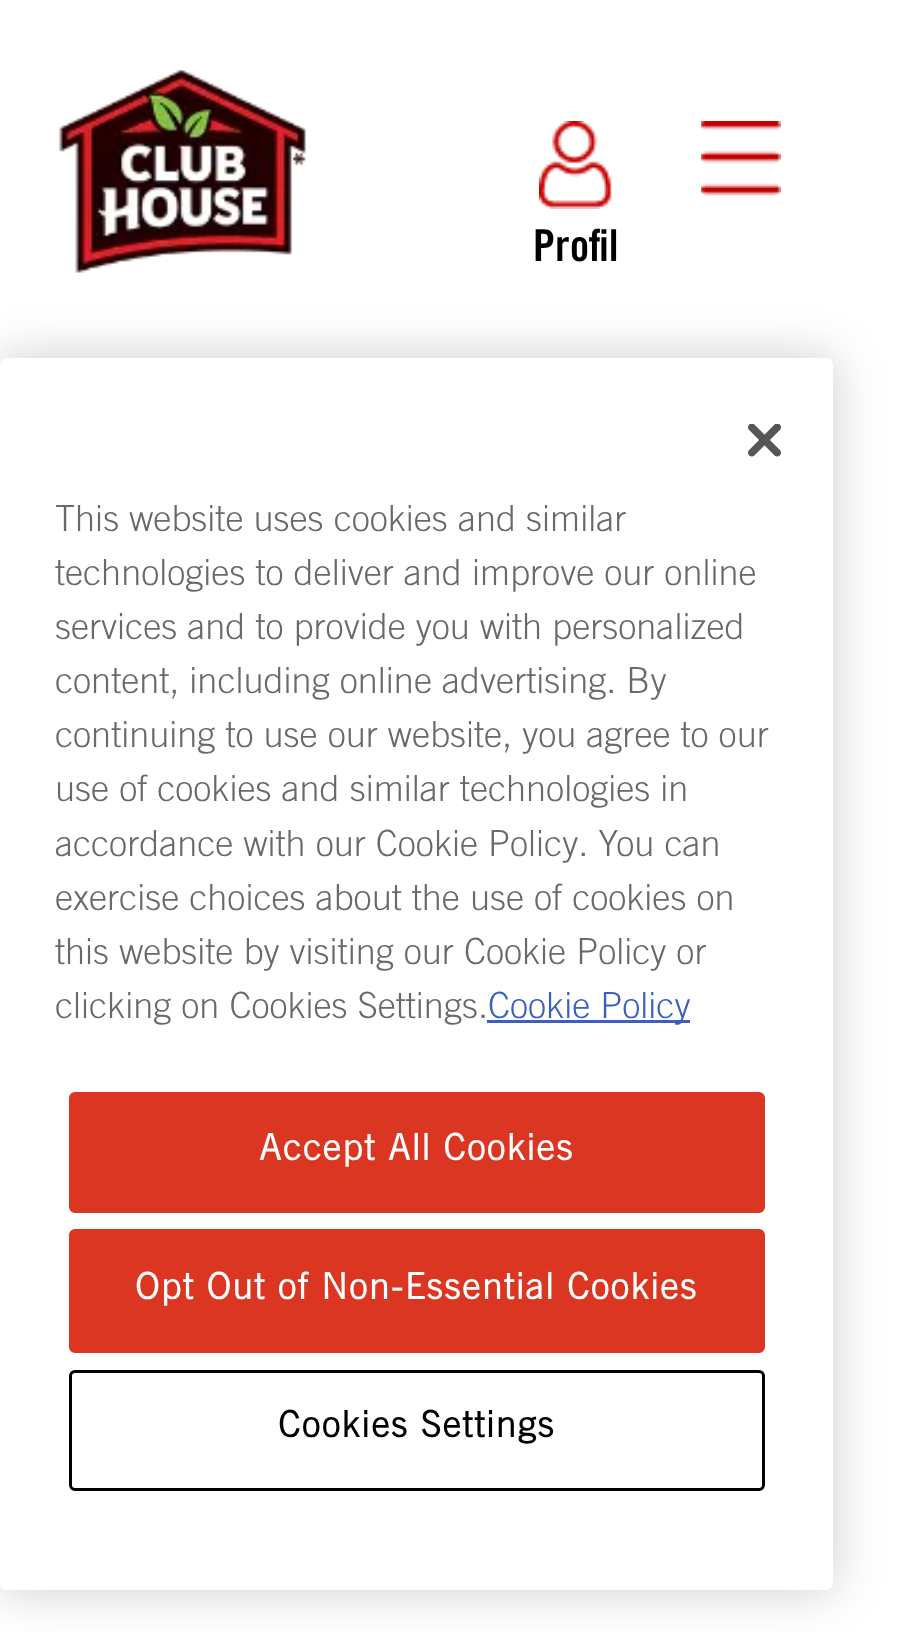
<?xml version="1.0" encoding="UTF-8"?>
<svg xmlns="http://www.w3.org/2000/svg" xmlns:xlink="http://www.w3.org/1999/xlink" width="904" height="1632">
  <rect width="100%" height="100%" fill="#ffffff" />
  <image x="59" y="70" width="248" height="203" xlink:href="image1.png" />
  <image x="701" y="121" width="80" height="75" xlink:href="image2.png" />
  <image x="539" y="121" width="73" height="88" xlink:href="image3.png" />
  <rect y="358" width="833" height="1232" rx="7" fill="#000000" fill-opacity="0.2" filter="blur(25px)" />
  <rect y="358" width="833" height="1232" rx="7" fill="#ffffff" />
  <image x="748" y="424" width="33" height="33" xlink:href="image4.png" />
  <rect x="487" y="1020" width="203" height="3" fill="#3860be" />
  <rect x="70.5" y="1093.5" width="693" height="118" rx="4.5" fill="#da3622" stroke="#da3622" stroke-width="3" />
  <rect x="70.5" y="1230.5" width="693" height="121" rx="4.5" fill="#da3622" stroke="#da3622" stroke-width="3" />
  <rect x="70.5" y="1371.5" width="693" height="118" rx="4.5" fill="none" stroke="#000000" stroke-width="3" />
  <text x="533" y="261" style="font-family: Trade Gothic; font-size: 44px; font-weight: bold; fill: #000000">Profil</text>
  <text x="55" y="531" style="font-family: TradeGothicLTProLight; font-size: 36.1px; font-weight: 300; fill: #696969">This website uses cookies and similar</text>
  <text x="55" y="585" style="font-family: TradeGothicLTProLight; font-size: 36.1px; font-weight: 300; fill: #696969">technologies to deliver and improve our online</text>
  <text x="55" y="639" style="font-family: TradeGothicLTProLight; font-size: 36.1px; font-weight: 300; fill: #696969">services and to provide you with personalized</text>
  <text x="55" y="693" style="font-family: TradeGothicLTProLight; font-size: 36.1px; font-weight: 300; fill: #696969">content, including online advertising. By</text>
  <text x="55" y="747" style="font-family: TradeGothicLTProLight; font-size: 36.1px; font-weight: 300; fill: #696969">continuing to use our website, you agree to our</text>
  <text x="55" y="801" style="font-family: TradeGothicLTProLight; font-size: 36.1px; font-weight: 300; fill: #696969">use of cookies and similar technologies in</text>
  <text x="55" y="856" style="font-family: TradeGothicLTProLight; font-size: 36.1px; font-weight: 300; fill: #696969">accordance with our Cookie Policy. You can</text>
  <text x="55" y="910" style="font-family: TradeGothicLTProLight; font-size: 36.1px; font-weight: 300; fill: #696969">exercise choices about the use of cookies on</text>
  <text x="55" y="964" style="font-family: TradeGothicLTProLight; font-size: 36.1px; font-weight: 300; fill: #696969">this website by visiting our Cookie Policy or</text>
  <text x="55" y="1018" style="font-family: TradeGothicLTProLight; font-size: 36.1px; font-weight: 300; fill: #696969">clicking on Cookies Settings.</text>
  <text x="488" y="1018" style="font-family: TradeGothicLTProLight; font-size: 36.1px; font-weight: 300; fill: #3860be">Cookie Policy</text>
  <text x="259" y="1160" style="font-family: TradeGothicLTProLight; font-size: 36.1px; font-weight: bold; letter-spacing: 1.8px; fill: #ffffff">Accept All Cookies</text>
  <text x="135" y="1299" style="font-family: TradeGothicLTProLight; font-size: 36.1px; font-weight: bold; letter-spacing: 1.8px; fill: #ffffff">Opt Out of Non-Essential Cookies</text>
  <text x="278" y="1437" style="font-family: TradeGothicLTProLight; font-size: 36.1px; font-weight: bold; letter-spacing: 1.8px; fill: #000000">Cookies Settings</text>
</svg>
